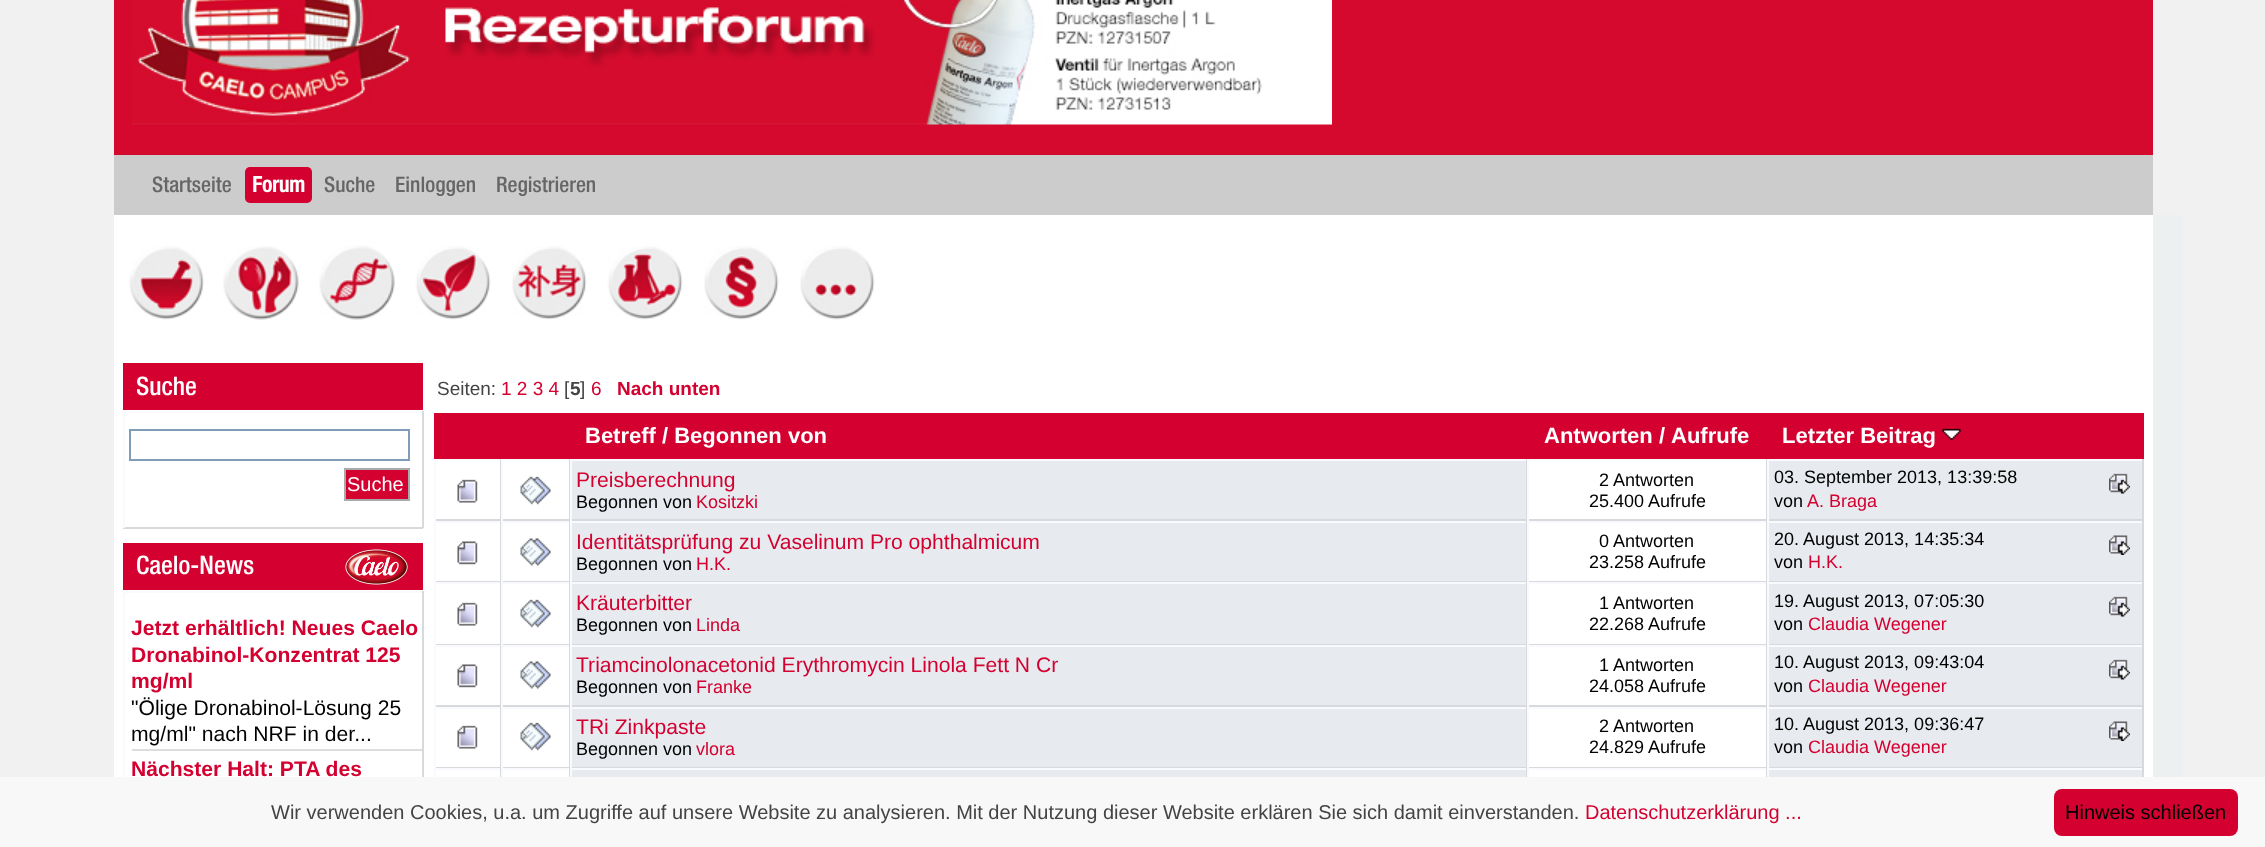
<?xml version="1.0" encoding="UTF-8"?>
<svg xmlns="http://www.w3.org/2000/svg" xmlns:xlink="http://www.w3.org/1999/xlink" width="2265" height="847">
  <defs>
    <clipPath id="clip1"><rect x="137" y="363" width="286" height="47" /></clipPath>
    <clipPath id="clip2"><rect x="137" y="543" width="286" height="47" /></clipPath>
  </defs>
  <rect width="100%" height="100%" fill="#f1f1f1" />
  <rect x="114" width="2039" height="155" fill="#d5092e" />
  <image x="132" y="0" width="1200" height="125" xlink:href="image1.png" />
  <rect x="114" y="155" width="2039" height="60" fill="#cccccc" />
  <rect x="252" y="167" width="60" height="36" rx="5" fill="#d30030" />
  <rect x="245" y="167" width="60" height="36" rx="5" fill="#d30030" />
  <rect x="2153" y="215" width="30" height="562" fill="#ecf0f1" />
  <rect x="114" y="215" width="2039" height="562" fill="#ffffff" />
  <image x="129" y="246" width="75" height="74" xlink:href="image2.png" />
  <image x="223" y="246" width="76" height="74" xlink:href="image3.png" />
  <image x="319" y="245" width="76" height="75" xlink:href="image4.png" />
  <image x="415" y="246" width="76" height="74" xlink:href="image5.png" />
  <image x="512" y="246" width="75" height="74" xlink:href="image6.png" />
  <image x="607" y="246" width="76" height="74" xlink:href="image7.png" />
  <image x="704" y="246" width="75" height="74" xlink:href="image8.png" />
  <image x="800" y="246" width="75" height="74" xlink:href="image9.png" />
  <rect x="123" y="363" width="300" height="47" fill="#d30030" />
  <rect x="123" y="411" width="300" height="2" fill="#f8fafd" />
  <rect x="422" y="411" width="2" height="117" fill="#d7d9dd" />
  <rect x="123" y="527" width="300" height="2" fill="#d7d9dd" />
  <rect x="123" y="411" width="2" height="117" fill="#f8fafd" />
  <rect x="130" y="430" width="279" height="30" fill="none" stroke="#7f9db9" stroke-width="2" />
  <rect x="345" y="469" width="64" height="31" fill="#d30030" stroke="#aaaaaa" stroke-width="2" />
  <rect x="123" y="543" width="300" height="47" fill="#d30030" />
  <image x="345" y="549" width="63" height="36" xlink:href="image10.png" />
  <rect x="123" y="591" width="300" height="2" fill="#f8fafd" />
  <rect x="422" y="591" width="2" height="186" fill="#d7d9dd" />
  <rect x="123" y="591" width="2" height="186" fill="#f8fafd" />
  <rect x="132" y="749" width="290" height="2" fill="#dddddd" />
  <rect x="434" y="413" width="1710" height="46" fill="#d30030" />
  <image x="1942" y="428" width="19" height="12" xlink:href="image11.png" />
  <rect x="434" y="459" width="1710" height="2" fill="#f8fafd" />
  <rect x="500" y="459" width="1" height="62" fill="#d7d9dd" />
  <rect x="434" y="519" width="67" height="2" fill="#d7d9dd" />
  <rect x="434" y="459" width="2" height="62" fill="#f8fafd" />
  <image x="457" y="479" width="21" height="24" xlink:href="image12.png" />
  <rect x="569" y="459" width="1" height="62" fill="#d7d9dd" />
  <rect x="501" y="519" width="69" height="2" fill="#d7d9dd" />
  <rect x="501" y="459" width="2" height="62" fill="#f8fafd" />
  <image x="520" y="476" width="31" height="29" xlink:href="image13.png" />
  <rect x="572" y="461" width="954" height="58" fill="#e7eaef" />
  <rect x="1526" y="459" width="1" height="62" fill="#d7d9dd" />
  <rect x="570" y="519" width="957" height="2" fill="#d7d9dd" />
  <rect x="570" y="459" width="2" height="62" fill="#f8fafd" />
  <rect x="1766" y="459" width="1" height="62" fill="#d7d9dd" />
  <rect x="1527" y="519" width="240" height="2" fill="#d7d9dd" />
  <rect x="1527" y="459" width="2" height="62" fill="#f8fafd" />
  <rect x="1769" y="461" width="373" height="58" fill="#e7eaef" />
  <rect x="2142" y="459" width="2" height="62" fill="#d7d9dd" />
  <rect x="1767" y="519" width="377" height="2" fill="#d7d9dd" />
  <rect x="1767" y="459" width="2" height="62" fill="#f8fafd" />
  <image x="2109" y="473" width="21" height="21" xlink:href="image14.png" />
  <rect x="434" y="521" width="1710" height="2" fill="#f8fafd" />
  <rect x="500" y="521" width="1" height="61" fill="#d7d9dd" />
  <rect x="434" y="581" width="67" height="1" fill="#d7d9dd" />
  <rect x="434" y="521" width="2" height="61" fill="#f8fafd" />
  <image x="457" y="541" width="21" height="24" xlink:href="image15.png" />
  <rect x="569" y="521" width="1" height="61" fill="#d7d9dd" />
  <rect x="501" y="581" width="69" height="1" fill="#d7d9dd" />
  <rect x="501" y="521" width="2" height="61" fill="#f8fafd" />
  <image x="520" y="538" width="31" height="28" xlink:href="image16.png" />
  <rect x="572" y="523" width="954" height="58" fill="#e7eaef" />
  <rect x="1526" y="521" width="1" height="61" fill="#d7d9dd" />
  <rect x="570" y="581" width="957" height="1" fill="#d7d9dd" />
  <rect x="570" y="521" width="2" height="61" fill="#f8fafd" />
  <rect x="1766" y="521" width="1" height="61" fill="#d7d9dd" />
  <rect x="1527" y="581" width="240" height="1" fill="#d7d9dd" />
  <rect x="1527" y="521" width="2" height="61" fill="#f8fafd" />
  <rect x="1769" y="523" width="373" height="58" fill="#e7eaef" />
  <rect x="2142" y="521" width="2" height="61" fill="#d7d9dd" />
  <rect x="1767" y="581" width="377" height="1" fill="#d7d9dd" />
  <rect x="1767" y="521" width="2" height="61" fill="#f8fafd" />
  <image x="2109" y="535" width="21" height="20" xlink:href="image17.png" />
  <rect x="434" y="582" width="1710" height="2" fill="#f8fafd" />
  <rect x="500" y="582" width="1" height="63" fill="#d7d9dd" />
  <rect x="434" y="644" width="67" height="1" fill="#d7d9dd" />
  <rect x="434" y="582" width="2" height="63" fill="#f8fafd" />
  <image x="457" y="602" width="21" height="24" xlink:href="image12.png" />
  <rect x="569" y="582" width="1" height="63" fill="#d7d9dd" />
  <rect x="501" y="644" width="69" height="1" fill="#d7d9dd" />
  <rect x="501" y="582" width="2" height="63" fill="#f8fafd" />
  <image x="520" y="599" width="31" height="29" xlink:href="image13.png" />
  <rect x="572" y="584" width="954" height="60" fill="#e7eaef" />
  <rect x="1526" y="582" width="1" height="63" fill="#d7d9dd" />
  <rect x="570" y="644" width="957" height="1" fill="#d7d9dd" />
  <rect x="570" y="582" width="2" height="63" fill="#f8fafd" />
  <rect x="1766" y="582" width="1" height="63" fill="#d7d9dd" />
  <rect x="1527" y="644" width="240" height="1" fill="#d7d9dd" />
  <rect x="1527" y="582" width="2" height="63" fill="#f8fafd" />
  <rect x="1769" y="584" width="373" height="60" fill="#e7eaef" />
  <rect x="2142" y="582" width="2" height="63" fill="#d7d9dd" />
  <rect x="1767" y="644" width="377" height="1" fill="#d7d9dd" />
  <rect x="1767" y="582" width="2" height="63" fill="#f8fafd" />
  <image x="2109" y="596" width="21" height="21" xlink:href="image14.png" />
  <rect x="434" y="645" width="1710" height="2" fill="#f8fafd" />
  <rect x="500" y="645" width="1" height="62" fill="#d7d9dd" />
  <rect x="434" y="705" width="67" height="2" fill="#d7d9dd" />
  <rect x="434" y="645" width="2" height="62" fill="#f8fafd" />
  <image x="457" y="664" width="21" height="24" xlink:href="image15.png" />
  <rect x="569" y="645" width="1" height="62" fill="#d7d9dd" />
  <rect x="501" y="705" width="69" height="2" fill="#d7d9dd" />
  <rect x="501" y="645" width="2" height="62" fill="#f8fafd" />
  <image x="520" y="661" width="31" height="28" xlink:href="image16.png" />
  <rect x="572" y="647" width="954" height="58" fill="#e7eaef" />
  <rect x="1526" y="645" width="1" height="62" fill="#d7d9dd" />
  <rect x="570" y="705" width="957" height="2" fill="#d7d9dd" />
  <rect x="570" y="645" width="2" height="62" fill="#f8fafd" />
  <rect x="1766" y="645" width="1" height="62" fill="#d7d9dd" />
  <rect x="1527" y="705" width="240" height="2" fill="#d7d9dd" />
  <rect x="1527" y="645" width="2" height="62" fill="#f8fafd" />
  <rect x="1769" y="647" width="373" height="58" fill="#e7eaef" />
  <rect x="2142" y="645" width="2" height="62" fill="#d7d9dd" />
  <rect x="1767" y="705" width="377" height="2" fill="#d7d9dd" />
  <rect x="1767" y="645" width="2" height="62" fill="#f8fafd" />
  <image x="2109" y="659" width="21" height="21" xlink:href="image14.png" />
  <rect x="434" y="707" width="1710" height="2" fill="#f8fafd" />
  <rect x="500" y="707" width="1" height="61" fill="#d7d9dd" />
  <rect x="434" y="767" width="67" height="1" fill="#d7d9dd" />
  <rect x="434" y="707" width="2" height="61" fill="#f8fafd" />
  <image x="457" y="725" width="21" height="24" xlink:href="image12.png" />
  <rect x="569" y="707" width="1" height="61" fill="#d7d9dd" />
  <rect x="501" y="767" width="69" height="1" fill="#d7d9dd" />
  <rect x="501" y="707" width="2" height="61" fill="#f8fafd" />
  <image x="520" y="722" width="31" height="29" xlink:href="image13.png" />
  <rect x="572" y="709" width="954" height="58" fill="#e7eaef" />
  <rect x="1526" y="707" width="1" height="61" fill="#d7d9dd" />
  <rect x="570" y="767" width="957" height="1" fill="#d7d9dd" />
  <rect x="570" y="707" width="2" height="61" fill="#f8fafd" />
  <rect x="1766" y="707" width="1" height="61" fill="#d7d9dd" />
  <rect x="1527" y="767" width="240" height="1" fill="#d7d9dd" />
  <rect x="1527" y="707" width="2" height="61" fill="#f8fafd" />
  <rect x="1769" y="709" width="373" height="58" fill="#e7eaef" />
  <rect x="2142" y="707" width="2" height="61" fill="#d7d9dd" />
  <rect x="1767" y="767" width="377" height="1" fill="#d7d9dd" />
  <rect x="1767" y="707" width="2" height="61" fill="#f8fafd" />
  <image x="2109" y="721" width="21" height="20" xlink:href="image17.png" />
  <rect x="434" y="768" width="1710" height="2" fill="#f8fafd" />
  <rect x="500" y="768" width="1" height="9" fill="#d7d9dd" />
  <rect x="434" y="768" width="2" height="9" fill="#f8fafd" />
  <rect x="569" y="768" width="1" height="9" fill="#d7d9dd" />
  <rect x="501" y="768" width="2" height="9" fill="#f8fafd" />
  <rect x="572" y="770" width="954" height="7" fill="#e7eaef" />
  <rect x="1526" y="768" width="1" height="9" fill="#d7d9dd" />
  <rect x="570" y="768" width="2" height="9" fill="#f8fafd" />
  <rect x="1766" y="768" width="1" height="9" fill="#d7d9dd" />
  <rect x="1527" y="768" width="2" height="9" fill="#f8fafd" />
  <rect x="1769" y="770" width="373" height="7" fill="#e7eaef" />
  <rect x="2142" y="768" width="2" height="9" fill="#d7d9dd" />
  <rect x="1767" y="768" width="2" height="9" fill="#f8fafd" />
  <rect y="777" width="2265" height="70" fill="#f8f8f8" />
  <rect x="2054" y="789" width="184" height="47" rx="8" fill="#d40030" />
  <text x="152" y="192" style="font-family: 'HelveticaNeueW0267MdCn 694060'; font-size: 21.5px; fill: #666666">Startseite</text>
  <text x="252" y="192" style="font-family: 'HelveticaNeueW0267MdCn 694060'; font-size: 21.5px; font-weight: bold; fill: #ffffff">Forum</text>
  <text x="324" y="192" style="font-family: 'HelveticaNeueW0267MdCn 694060'; font-size: 21.5px; fill: #666666">Suche</text>
  <text x="395" y="192" style="font-family: 'HelveticaNeueW0267MdCn 694060'; font-size: 21.5px; fill: #666666">Einloggen</text>
  <text x="496" y="192" style="font-family: 'HelveticaNeueW0267MdCn 694060'; font-size: 21.5px; fill: #666666">Registrieren</text>
  <g clip-path="url(#clip1)">
    <text x="136" y="395" style="font-family: 'HelveticaNeueW0267MdCn 694060'; font-size: 25.5px; fill: #ffffff">Suche</text>
  </g>
  <text x="347" y="491" style="font-family: Liberation Sans; font-size: 20px; fill: #ffffff">Suche</text>
  <g clip-path="url(#clip2)">
    <text x="136" y="574" style="font-family: 'HelveticaNeueW0267MdCn 694060'; font-size: 25.5px; fill: #ffffff">Caelo-News</text>
  </g>
  <text x="131" y="635" style="font-family: Liberation Sans; font-size: 21.1px; font-weight: bold; fill: #d30030">Jetzt erhältlich! Neues Caelo</text>
  <text x="131" y="662" style="font-family: Liberation Sans; font-size: 21.1px; font-weight: bold; fill: #d30030">Dronabinol-Konzentrat 125</text>
  <text x="131" y="688" style="font-family: Liberation Sans; font-size: 21.1px; font-weight: bold; fill: #d30030">mg/ml</text>
  <text x="131" y="715" style="font-family: Liberation Sans; font-size: 21.1px; fill: #000000">"Ölige Dronabinol-Lösung 25</text>
  <text x="131" y="741" style="font-family: Liberation Sans; font-size: 21.1px; fill: #000000">mg/ml" nach NRF in der...</text>
  <text x="131" y="776" style="font-family: Liberation Sans; font-size: 21.1px; font-weight: bold; fill: #d30030">Nächster Halt: PTA des</text>
  <text x="437" y="395" style="font-family: Liberation Sans; font-size: 19px; fill: #444444">Seiten:</text>
  <text x="501" y="395" style="font-family: Liberation Sans; font-size: 19px; fill: #d30030">1 2 3 4</text>
  <text x="564" y="395" style="font-family: Liberation Sans; font-size: 19px; fill: #444444">[</text>
  <text x="570" y="395" style="font-family: Liberation Sans; font-size: 19px; font-weight: bold; fill: #444444">5</text>
  <text x="580" y="395" style="font-family: Liberation Sans; font-size: 19px; fill: #444444">]</text>
  <text x="591" y="395" style="font-family: Liberation Sans; font-size: 19px; fill: #d30030">6</text>
  <text x="617" y="395" style="font-family: Liberation Sans; font-size: 19px; font-weight: bold; fill: #d30030">Nach unten</text>
  <text x="585" y="443" style="font-family: Liberation Sans; font-size: 22px; font-weight: bold; fill: #ffffff">Betreff / Begonnen von</text>
  <text x="1544" y="443" style="font-family: Liberation Sans; font-size: 22px; font-weight: bold; fill: #ffffff">Antworten</text>
  <text x="1659" y="443" style="font-family: Liberation Sans; font-size: 22px; font-weight: bold; fill: #ffffff">/</text>
  <text x="1671" y="443" style="font-family: Liberation Sans; font-size: 22px; font-weight: bold; fill: #ffffff">Aufrufe</text>
  <text x="1782" y="443" style="font-family: Liberation Sans; font-size: 22px; font-weight: bold; fill: #ffffff">Letzter Beitrag</text>
  <text x="576" y="487" style="font-family: Liberation Sans; font-size: 21.1px; fill: #d30030">Preisberechnung</text>
  <text x="576" y="508" style="font-family: Liberation Sans; font-size: 18px; fill: #000000">Begonnen von</text>
  <text x="696" y="508" style="font-family: Liberation Sans; font-size: 18px; fill: #d30030">Kositzki</text>
  <text x="1599" y="486" style="font-family: Liberation Sans; font-size: 18px; fill: #000000">2 Antworten</text>
  <text x="1589" y="507" style="font-family: Liberation Sans; font-size: 18px; fill: #000000">25.400 Aufrufe</text>
  <text x="1774" y="483" style="font-family: Liberation Sans; font-size: 18px; fill: #000000">03. September 2013, 13:39:58</text>
  <text x="1774" y="507" style="font-family: Liberation Sans; font-size: 18px; fill: #000000">von</text>
  <text x="1807" y="507" style="font-family: Liberation Sans; font-size: 18px; fill: #d30030">A. Braga</text>
  <text x="576" y="549" style="font-family: Liberation Sans; font-size: 21.1px; fill: #d30030">Identitätsprüfung zu Vaselinum Pro ophthalmicum</text>
  <text x="576" y="570" style="font-family: Liberation Sans; font-size: 18px; fill: #000000">Begonnen von</text>
  <text x="696" y="570" style="font-family: Liberation Sans; font-size: 18px; fill: #d30030">H.K.</text>
  <text x="1599" y="547" style="font-family: Liberation Sans; font-size: 18px; fill: #000000">0 Antworten</text>
  <text x="1589" y="568" style="font-family: Liberation Sans; font-size: 18px; fill: #000000">23.258 Aufrufe</text>
  <text x="1774" y="545" style="font-family: Liberation Sans; font-size: 18px; fill: #000000">20. August 2013, 14:35:34</text>
  <text x="1774" y="568" style="font-family: Liberation Sans; font-size: 18px; fill: #000000">von</text>
  <text x="1808" y="568" style="font-family: Liberation Sans; font-size: 18px; fill: #d30030">H.K.</text>
  <text x="576" y="610" style="font-family: Liberation Sans; font-size: 21.1px; fill: #d30030">Kräuterbitter</text>
  <text x="576" y="631" style="font-family: Liberation Sans; font-size: 18px; fill: #000000">Begonnen von</text>
  <text x="696" y="631" style="font-family: Liberation Sans; font-size: 18px; fill: #d30030">Linda</text>
  <text x="1599" y="609" style="font-family: Liberation Sans; font-size: 18px; fill: #000000">1 Antworten</text>
  <text x="1589" y="630" style="font-family: Liberation Sans; font-size: 18px; fill: #000000">22.268 Aufrufe</text>
  <text x="1774" y="607" style="font-family: Liberation Sans; font-size: 18px; fill: #000000">19. August 2013, 07:05:30</text>
  <text x="1774" y="630" style="font-family: Liberation Sans; font-size: 18px; fill: #000000">von</text>
  <text x="1808" y="630" style="font-family: Liberation Sans; font-size: 18px; fill: #d30030">Claudia Wegener</text>
  <text x="576" y="672" style="font-family: Liberation Sans; font-size: 21.1px; fill: #d30030">Triamcinolonacetonid Erythromycin Linola Fett N Cr</text>
  <text x="576" y="693" style="font-family: Liberation Sans; font-size: 18px; fill: #000000">Begonnen von</text>
  <text x="696" y="693" style="font-family: Liberation Sans; font-size: 18px; fill: #d30030">Franke</text>
  <text x="1599" y="671" style="font-family: Liberation Sans; font-size: 18px; fill: #000000">1 Antworten</text>
  <text x="1589" y="692" style="font-family: Liberation Sans; font-size: 18px; fill: #000000">24.058 Aufrufe</text>
  <text x="1774" y="668" style="font-family: Liberation Sans; font-size: 18px; fill: #000000">10. August 2013, 09:43:04</text>
  <text x="1774" y="692" style="font-family: Liberation Sans; font-size: 18px; fill: #000000">von</text>
  <text x="1808" y="692" style="font-family: Liberation Sans; font-size: 18px; fill: #d30030">Claudia Wegener</text>
  <text x="576" y="734" style="font-family: Liberation Sans; font-size: 21.1px; fill: #d30030">TRi Zinkpaste</text>
  <text x="576" y="755" style="font-family: Liberation Sans; font-size: 18px; fill: #000000">Begonnen von</text>
  <text x="696" y="755" style="font-family: Liberation Sans; font-size: 18px; fill: #d30030">vlora</text>
  <text x="1599" y="732" style="font-family: Liberation Sans; font-size: 18px; fill: #000000">2 Antworten</text>
  <text x="1589" y="753" style="font-family: Liberation Sans; font-size: 18px; fill: #000000">24.829 Aufrufe</text>
  <text x="1774" y="730" style="font-family: Liberation Sans; font-size: 18px; fill: #000000">10. August 2013, 09:36:47</text>
  <text x="1774" y="753" style="font-family: Liberation Sans; font-size: 18px; fill: #000000">von</text>
  <text x="1808" y="753" style="font-family: Liberation Sans; font-size: 18px; fill: #d30030">Claudia Wegener</text>
  <text x="271" y="819" style="font-family: Liberation Sans; font-size: 20px; fill: #444444">Wir verwenden Cookies, u.a. um Zugriffe auf unsere Website zu analysieren. Mit der Nutzung dieser Website erklären Sie sich damit einverstanden.</text>
  <text x="1585" y="819" style="font-family: Liberation Sans; font-size: 20px; fill: #d30030">Datenschutzerklärung ...</text>
  <text x="2065" y="819" style="font-family: Liberation Sans; font-size: 20px; fill: #000000">Hinweis schließen</text>
</svg>
